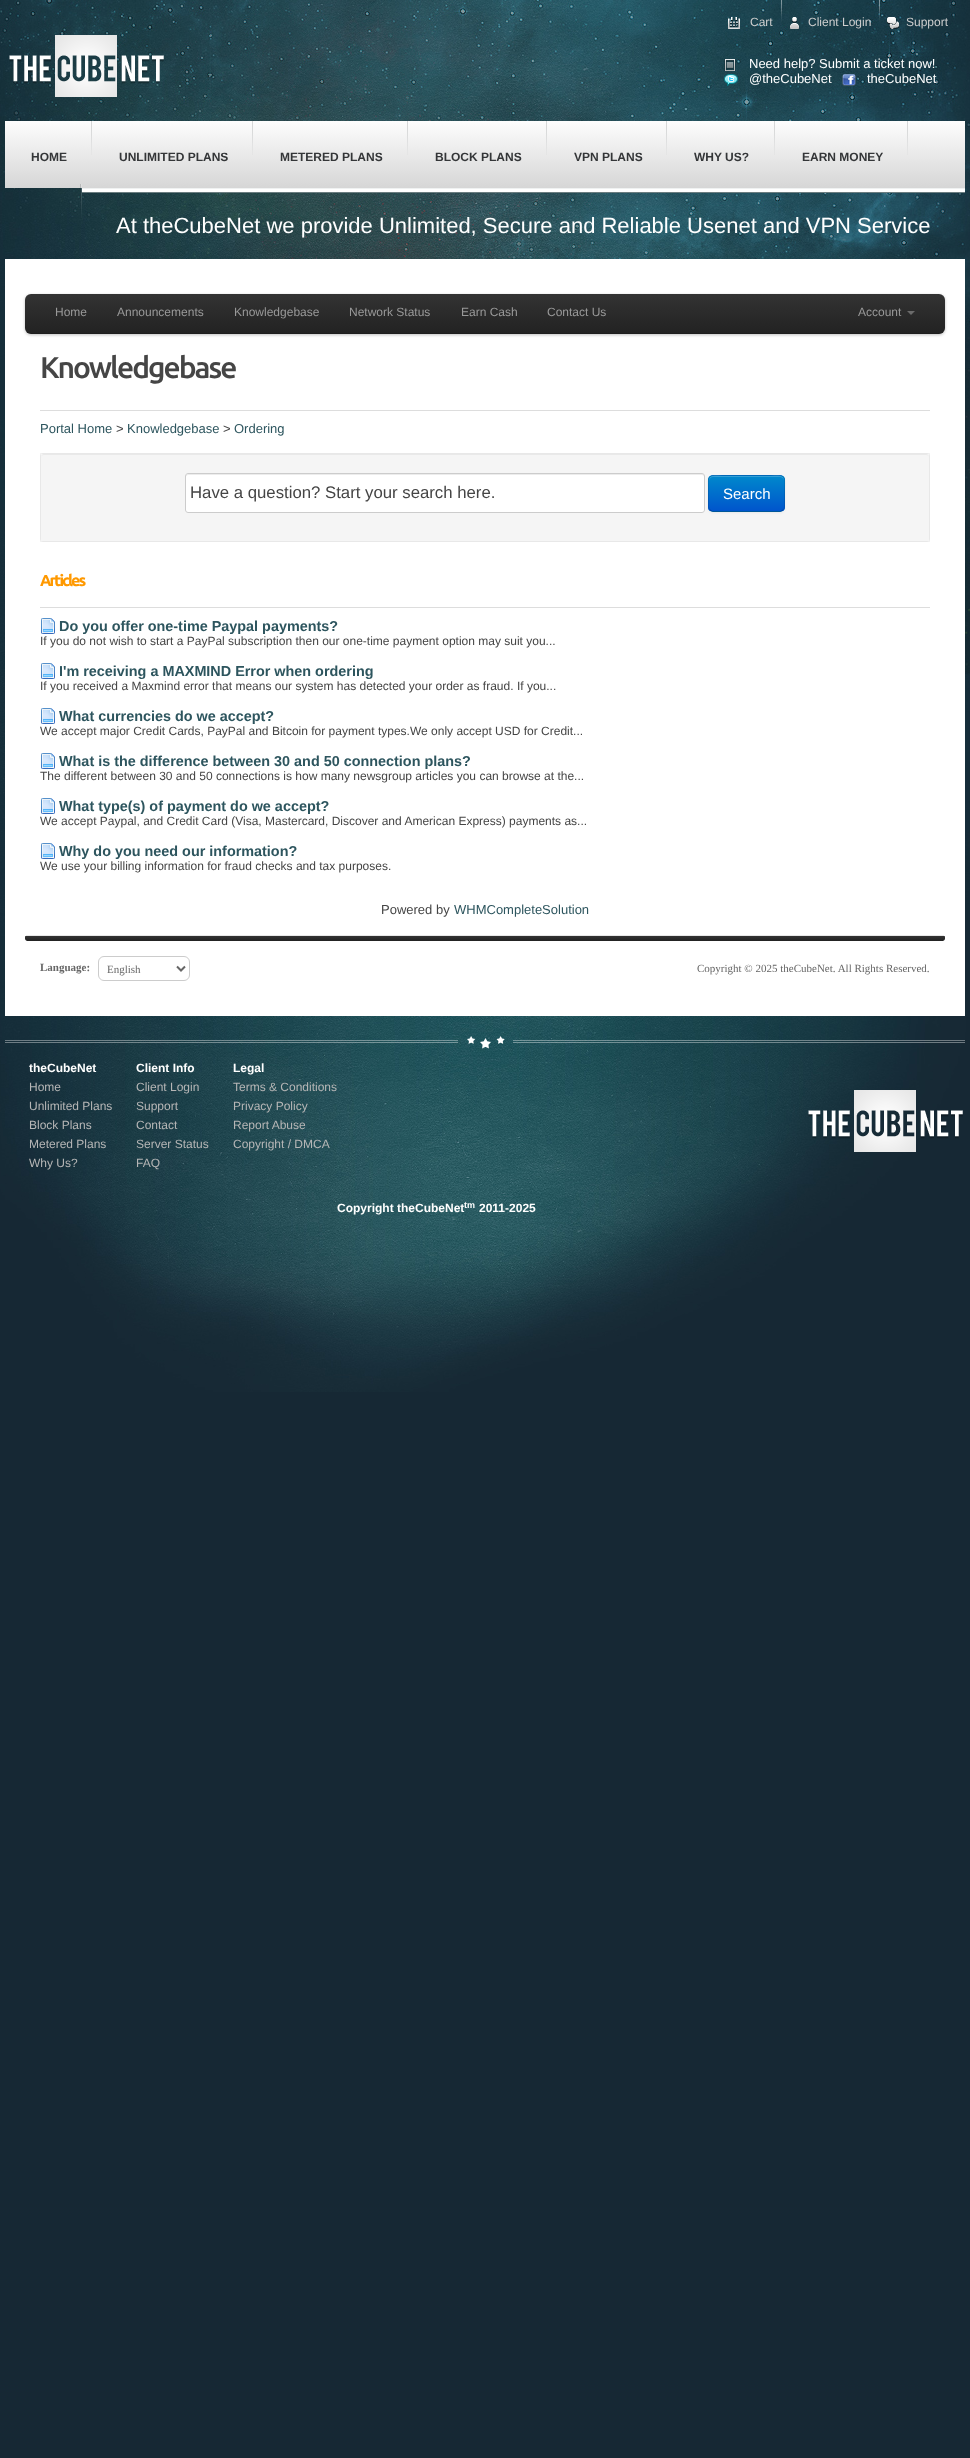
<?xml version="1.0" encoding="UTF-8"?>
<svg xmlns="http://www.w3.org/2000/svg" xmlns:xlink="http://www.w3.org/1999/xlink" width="970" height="2458">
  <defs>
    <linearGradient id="g1" gradientUnits="userSpaceOnUse" x1="485" y1="121" x2="485" y2="188"><stop offset="0" stop-color="#fdfdfd" /><stop offset="1" stop-color="#d6d6d6" /></linearGradient>
    <linearGradient id="g2" gradientUnits="userSpaceOnUse" x1="485" y1="294" x2="485" y2="334"><stop offset="0" stop-color="#333333" /><stop offset="1" stop-color="#222222" /></linearGradient>
    <clipPath id="clip1"><rect x="708" y="475" width="77" height="37" rx="5" /></clipPath>
    <linearGradient id="g3" gradientUnits="userSpaceOnUse" x1="747" y1="476" x2="747" y2="511"><stop offset="0" stop-color="#0088cc" /><stop offset="1" stop-color="#0055cc" /></linearGradient>
    <clipPath id="clip2"><rect x="25" y="935" width="920" height="6" rx="2" /></clipPath>
    <linearGradient id="g4" gradientUnits="userSpaceOnUse" x1="485" y1="936" x2="485" y2="941"><stop offset="0" stop-color="#333333" /><stop offset="1" stop-color="#222222" /></linearGradient>
  </defs>
  <rect width="100%" height="100%" fill="#162834" />
  <image x="0" y="0" width="970" height="1392" xlink:href="image1.png" />
  <image x="9" y="35" width="155" height="62" xlink:href="image2.png" />
  <image x="781" y="0" width="1" height="22" xlink:href="image3.png" />
  <image x="728" y="17" width="12" height="12" xlink:href="image4.png" />
  <image x="879" y="0" width="1" height="22" xlink:href="image5.png" />
  <image x="790" y="17" width="9" height="12" xlink:href="image6.png" />
  <image x="887" y="17" width="12" height="12" xlink:href="image7.png" />
  <image x="724" y="59" width="12" height="12" xlink:href="image8.png" />
  <image x="724" y="74" width="14" height="12" xlink:href="image9.png" />
  <image x="842" y="74" width="14" height="12" xlink:href="image10.png" />
  <rect x="5" y="121" width="960" height="67" fill="url(#g1)" />
  <image x="91" y="121" width="1" height="34" xlink:href="image11.png" />
  <image x="252" y="121" width="1" height="34" xlink:href="image11.png" />
  <image x="407" y="121" width="1" height="34" xlink:href="image11.png" />
  <image x="546" y="121" width="1" height="34" xlink:href="image11.png" />
  <image x="666" y="121" width="1" height="34" xlink:href="image11.png" />
  <image x="774" y="121" width="1" height="34" xlink:href="image11.png" />
  <image x="907" y="121" width="1" height="34" xlink:href="image11.png" />
  <image x="80" y="184" width="2" height="34" xlink:href="image12.png" />
  <rect x="82" y="189" width="883" height="3" fill="#ffffff" />
  <rect x="82" y="188" width="883" height="1" fill="#eff1f1" />
  <rect x="82" y="192" width="883" height="1" fill="#6b7d80" />
  <rect x="5" y="259" width="960" height="757" fill="#ffffff" />
  <rect x="25" y="295" width="920" height="40" rx="6" fill="#000000" fill-opacity="0.25" filter="blur(1.5px)" />
  <rect x="25" y="294" width="920" height="40" rx="6" fill="url(#g2)" />
  <path d="M 25 327 v 1 c 0 3 3 6 6 6 h 908 c 3 0 6 -3 6 -6 v -1 c 0 3 -3 6 -6 6 h -908 c -3 0 -6 -3 -6 -6 z" fill="#000000" fill-opacity="0.1" />
  <path d="M 907 311 h 8 l -4 4 z" fill="#6b6b6b" />
  <rect x="40" y="410" width="890" height="1" fill="#dddddd" />
  <rect x="40" y="453" width="890" height="89" rx="4" fill="#f5f5f5" />
  <path d="M 44 455 h 882 c 2 0 3 1 3 3 c 0 -2 -1 -4 -3 -4 h -882 c -2 0 -3 2 -3 4 c 0 -2 1 -3 3 -3 z" fill="#e9e9e9" />
  <rect x="40.5" y="453.5" width="889" height="88" fill="none" stroke="#000000" stroke-opacity="0.05" />
  <rect x="185" y="473" width="520" height="40" rx="3" fill="#ffffff" />
  <path d="M 188 475 h 514 c 1 0 2 1 2 2 c 0 -1 0 -3 -2 -3 h -514 l -2 1 v 2 c 0 -1 1 -2 2 -2 z" fill="#ececec" />
  <rect x="185.5" y="473.5" width="519" height="39" rx="2.5" fill="none" stroke="#cccccc" />
  <rect x="708" y="476" width="77" height="37" rx="5" fill="#000000" fill-opacity="0.05" filter="blur(1px)" />
  <rect x="708" y="475" width="77" height="37" rx="5" fill="#0074cc" />
  <g clip-path="url(#clip1)">
    <rect x="708" y="476" width="77" height="35" fill="url(#g3)" />
  </g>
  <path d="M 713 477 h 67 c 2 0 4 2 4 4 c 0 -8 -10 -5 -15 -5 h -45 c -5 0 -15 -3 -15 5 c 0 -2 2 -4 4 -4 z" fill="#ffffff" fill-opacity="0.2" />
  <path d="M 783 510 l -2.5 1.5 h -68 l -2.5 -1.5" fill="none" stroke="#000000" stroke-opacity="0.25" />
  <path d="M 710 510 c -2 -2 -1.5 -5 -1.5 -7.5 v -9 c 0 -19 -3 -18 15.5 -18 h 45 c 18.5 0 15.5 -1 15.5 18 v 9 c 0 2.5 0.5 5.5 -1.5 7.5" fill="none" stroke="#000000" stroke-opacity="0.1" />
  <rect x="40" y="607" width="890" height="1" fill="#dddddd" />
  <image x="41" y="618" width="14" height="16" xlink:href="image13.png" />
  <image x="41" y="663" width="14" height="16" xlink:href="image13.png" />
  <image x="41" y="708" width="14" height="16" xlink:href="image13.png" />
  <image x="41" y="753" width="14" height="16" xlink:href="image13.png" />
  <image x="41" y="798" width="14" height="16" xlink:href="image13.png" />
  <image x="41" y="843" width="14" height="16" xlink:href="image13.png" />
  <g clip-path="url(#clip2)">
    <path d="M 25 936 h 920 v 3 c 0 1 -1 2 -2 2 h -916 c -1 0 -2 -1 -2 -2 z" fill="url(#g4)" />
  </g>
  <rect x="26" y="935" width="918" height="1" fill="#e8e8e8" />
  <rect x="98.5" y="956.5" width="91" height="24" rx="5.5" fill="none" stroke="#cccccc" />
  <path d="M 177 966.5 l 4 4 l 4 -4" fill="none" stroke="#666666" stroke-width="2" />
  <image x="5" y="1036" width="960" height="13" xlink:href="image14.png" />
  <image x="808" y="1090" width="155" height="62" xlink:href="image15.png" />
  <text x="750" y="26" style="font-family: Liberation Sans; font-size: 12px; fill: #cecece">Cart</text>
  <text x="808" y="26" style="font-family: Liberation Sans; font-size: 12px; fill: #cecece">Client Login</text>
  <text x="906" y="26" style="font-family: Liberation Sans; font-size: 12px; fill: #cecece">Support</text>
  <text x="749" y="68" style="font-family: Liberation Sans; font-size: 13px; fill: #ffffff">Need help? Submit a ticket now!</text>
  <text x="749" y="83" style="font-family: Liberation Sans; font-size: 13px; fill: #ffffff">@theCubeNet</text>
  <text x="867" y="83" style="font-family: Liberation Sans; font-size: 13px; fill: #ffffff">theCubeNet</text>
  <text x="31" y="161" style="font-family: Liberation Sans; font-size: 12px; font-weight: bold; fill: #343638">HOME</text>
  <text x="119" y="161" style="font-family: Liberation Sans; font-size: 12px; font-weight: bold; fill: #343638">UNLIMITED PLANS</text>
  <text x="280" y="161" style="font-family: Liberation Sans; font-size: 12px; font-weight: bold; fill: #343638">METERED PLANS</text>
  <text x="435" y="161" style="font-family: Liberation Sans; font-size: 12px; font-weight: bold; fill: #343638">BLOCK PLANS</text>
  <text x="574" y="161" style="font-family: Liberation Sans; font-size: 12px; font-weight: bold; fill: #343638">VPN PLANS</text>
  <text x="694" y="161" style="font-family: Liberation Sans; font-size: 12px; font-weight: bold; fill: #343638">WHY US?</text>
  <text x="802" y="161" style="font-family: Liberation Sans; font-size: 12px; font-weight: bold; fill: #343638">EARN MONEY</text>
  <text x="116" y="233" style="font-family: Liberation Sans; font-size: 22px; fill: #ffffff">At theCubeNet we provide Unlimited, Secure and Reliable Usenet and VPN Service</text>
  <text x="55" y="316" style="font-family: Liberation Sans; font-size: 12px; fill: #999999">Home</text>
  <text x="117" y="316" style="font-family: Liberation Sans; font-size: 12px; fill: #999999">Announcements</text>
  <text x="234" y="316" style="font-family: Liberation Sans; font-size: 12px; fill: #999999">Knowledgebase</text>
  <text x="349" y="316" style="font-family: Liberation Sans; font-size: 12px; fill: #999999">Network Status</text>
  <text x="461" y="316" style="font-family: Liberation Sans; font-size: 12px; fill: #999999">Earn Cash</text>
  <text x="547" y="316" style="font-family: Liberation Sans; font-size: 12px; fill: #999999">Contact Us</text>
  <text x="858" y="316" style="font-family: Liberation Sans; font-size: 12px; fill: #999999">Account</text>
  <text x="40" y="378" style="font-family: Ubuntu; font-size: 30px; font-weight: 500; letter-spacing: -2px; fill: #454545">Knowledgebase</text>
  <text x="40" y="433" style="font-family: Liberation Sans; font-size: 13px; fill: #2d555e">Portal Home</text>
  <text x="116" y="433" style="font-family: Liberation Sans; font-size: 13px; fill: #454545">&gt;</text>
  <text x="127" y="433" style="font-family: Liberation Sans; font-size: 13px; fill: #2d555e">Knowledgebase</text>
  <text x="223" y="433" style="font-family: Liberation Sans; font-size: 13px; fill: #454545">&gt;</text>
  <text x="234" y="433" style="font-family: Liberation Sans; font-size: 13px; fill: #2d555e">Ordering</text>
  <text x="190" y="498" style="font-family: Liberation Sans; font-size: 16.75px; fill: #454545">Have a question? Start your search here.</text>
  <text x="723" y="499" style="font-family: Liberation Sans; font-size: 15px; fill: #ffffff">Search</text>
  <text x="40" y="586" style="font-family: Ubuntu; font-size: 16px; font-weight: bold; letter-spacing: -2px; fill: #ff9900">Articles</text>
  <text x="59" y="631" style="font-family: Liberation Sans; font-size: 14.4px; font-weight: bold; fill: #2d555e">Do you offer one-time Paypal payments?</text>
  <text x="40" y="645" style="font-family: Liberation Sans; font-size: 12px; fill: #454545">If you do not wish to start a PayPal subscription then our one-time payment option may suit you...</text>
  <text x="59" y="676" style="font-family: Liberation Sans; font-size: 14.4px; font-weight: bold; fill: #2d555e">I'm receiving a MAXMIND Error when ordering</text>
  <text x="40" y="690" style="font-family: Liberation Sans; font-size: 12px; fill: #454545">If you received a Maxmind error that means our system has detected your order as fraud. If you...</text>
  <text x="59" y="721" style="font-family: Liberation Sans; font-size: 14.4px; font-weight: bold; fill: #2d555e">What currencies do we accept?</text>
  <text x="40" y="735" style="font-family: Liberation Sans; font-size: 12px; fill: #454545">We accept major Credit Cards, PayPal and Bitcoin for payment types.We only accept USD for Credit...</text>
  <text x="59" y="766" style="font-family: Liberation Sans; font-size: 14.4px; font-weight: bold; fill: #2d555e">What is the difference between 30 and 50 connection plans?</text>
  <text x="40" y="780" style="font-family: Liberation Sans; font-size: 12px; fill: #454545">The different between 30 and 50 connections is how many newsgroup articles you can browse at the...</text>
  <text x="59" y="811" style="font-family: Liberation Sans; font-size: 14.4px; font-weight: bold; fill: #2d555e">What type(s) of payment do we accept?</text>
  <text x="40" y="825" style="font-family: Liberation Sans; font-size: 12px; fill: #454545">We accept Paypal, and Credit Card (Visa, Mastercard, Discover and American Express) payments as...</text>
  <text x="59" y="856" style="font-family: Liberation Sans; font-size: 14.4px; font-weight: bold; fill: #2d555e">Why do you need our information?</text>
  <text x="40" y="870" style="font-family: Liberation Sans; font-size: 12px; fill: #454545">We use your billing information for fraud checks and tax purposes.</text>
  <text x="381" y="914" style="font-family: Liberation Sans; font-size: 13px; fill: #454545">Powered by</text>
  <text x="454" y="914" style="font-family: Liberation Sans; font-size: 13px; fill: #2d555e">WHMCompleteSolution</text>
  <text x="40" y="971" style="font-family: Liberation Serif; font-size: 11px; font-weight: bold; fill: #666666">Language:</text>
  <text x="107" y="973" style="font-family: Liberation Serif; font-size: 11px; fill: #666666">English</text>
  <text x="697" y="972" style="font-family: Liberation Serif; font-size: 11px; fill: #666666">Copyright © 2025 theCubeNet. All Rights Reserved.</text>
  <text x="29" y="1072" style="font-family: Liberation Sans; font-size: 12px; font-weight: bold; fill: #ffffff">theCubeNet</text>
  <text x="29" y="1091" style="font-family: Liberation Sans; font-size: 12px; fill: #b6b6b6">Home</text>
  <text x="29" y="1110" style="font-family: Liberation Sans; font-size: 12px; fill: #b6b6b6">Unlimited Plans</text>
  <text x="29" y="1129" style="font-family: Liberation Sans; font-size: 12px; fill: #b6b6b6">Block Plans</text>
  <text x="29" y="1148" style="font-family: Liberation Sans; font-size: 12px; fill: #b6b6b6">Metered Plans</text>
  <text x="29" y="1167" style="font-family: Liberation Sans; font-size: 12px; fill: #b6b6b6">Why Us?</text>
  <text x="136" y="1072" style="font-family: Liberation Sans; font-size: 12px; font-weight: bold; fill: #ffffff">Client Info</text>
  <text x="136" y="1091" style="font-family: Liberation Sans; font-size: 12px; fill: #b6b6b6">Client Login</text>
  <text x="136" y="1110" style="font-family: Liberation Sans; font-size: 12px; fill: #b6b6b6">Support</text>
  <text x="136" y="1129" style="font-family: Liberation Sans; font-size: 12px; fill: #b6b6b6">Contact</text>
  <text x="136" y="1148" style="font-family: Liberation Sans; font-size: 12px; fill: #b6b6b6">Server Status</text>
  <text x="136" y="1167" style="font-family: Liberation Sans; font-size: 12px; fill: #b6b6b6">FAQ</text>
  <text x="233" y="1072" style="font-family: Liberation Sans; font-size: 12px; font-weight: bold; fill: #ffffff">Legal</text>
  <text x="233" y="1091" style="font-family: Liberation Sans; font-size: 12px; fill: #b6b6b6">Terms &amp; Conditions</text>
  <text x="233" y="1110" style="font-family: Liberation Sans; font-size: 12px; fill: #b6b6b6">Privacy Policy</text>
  <text x="233" y="1129" style="font-family: Liberation Sans; font-size: 12px; fill: #b6b6b6">Report Abuse</text>
  <text x="233" y="1148" style="font-family: Liberation Sans; font-size: 12px; fill: #b6b6b6">Copyright / DMCA</text>
  <text x="337" y="1212" style="font-family: Liberation Sans; font-size: 12px; font-weight: bold; fill: #ffffff">Copyright theCubeNet</text>
  <text x="464" y="1208" style="font-family: Liberation Sans; font-size: 9px; font-weight: bold; fill: #ffffff">tm</text>
  <text x="479" y="1212" style="font-family: Liberation Sans; font-size: 12px; font-weight: bold; fill: #ffffff">2011-2025</text>
</svg>
